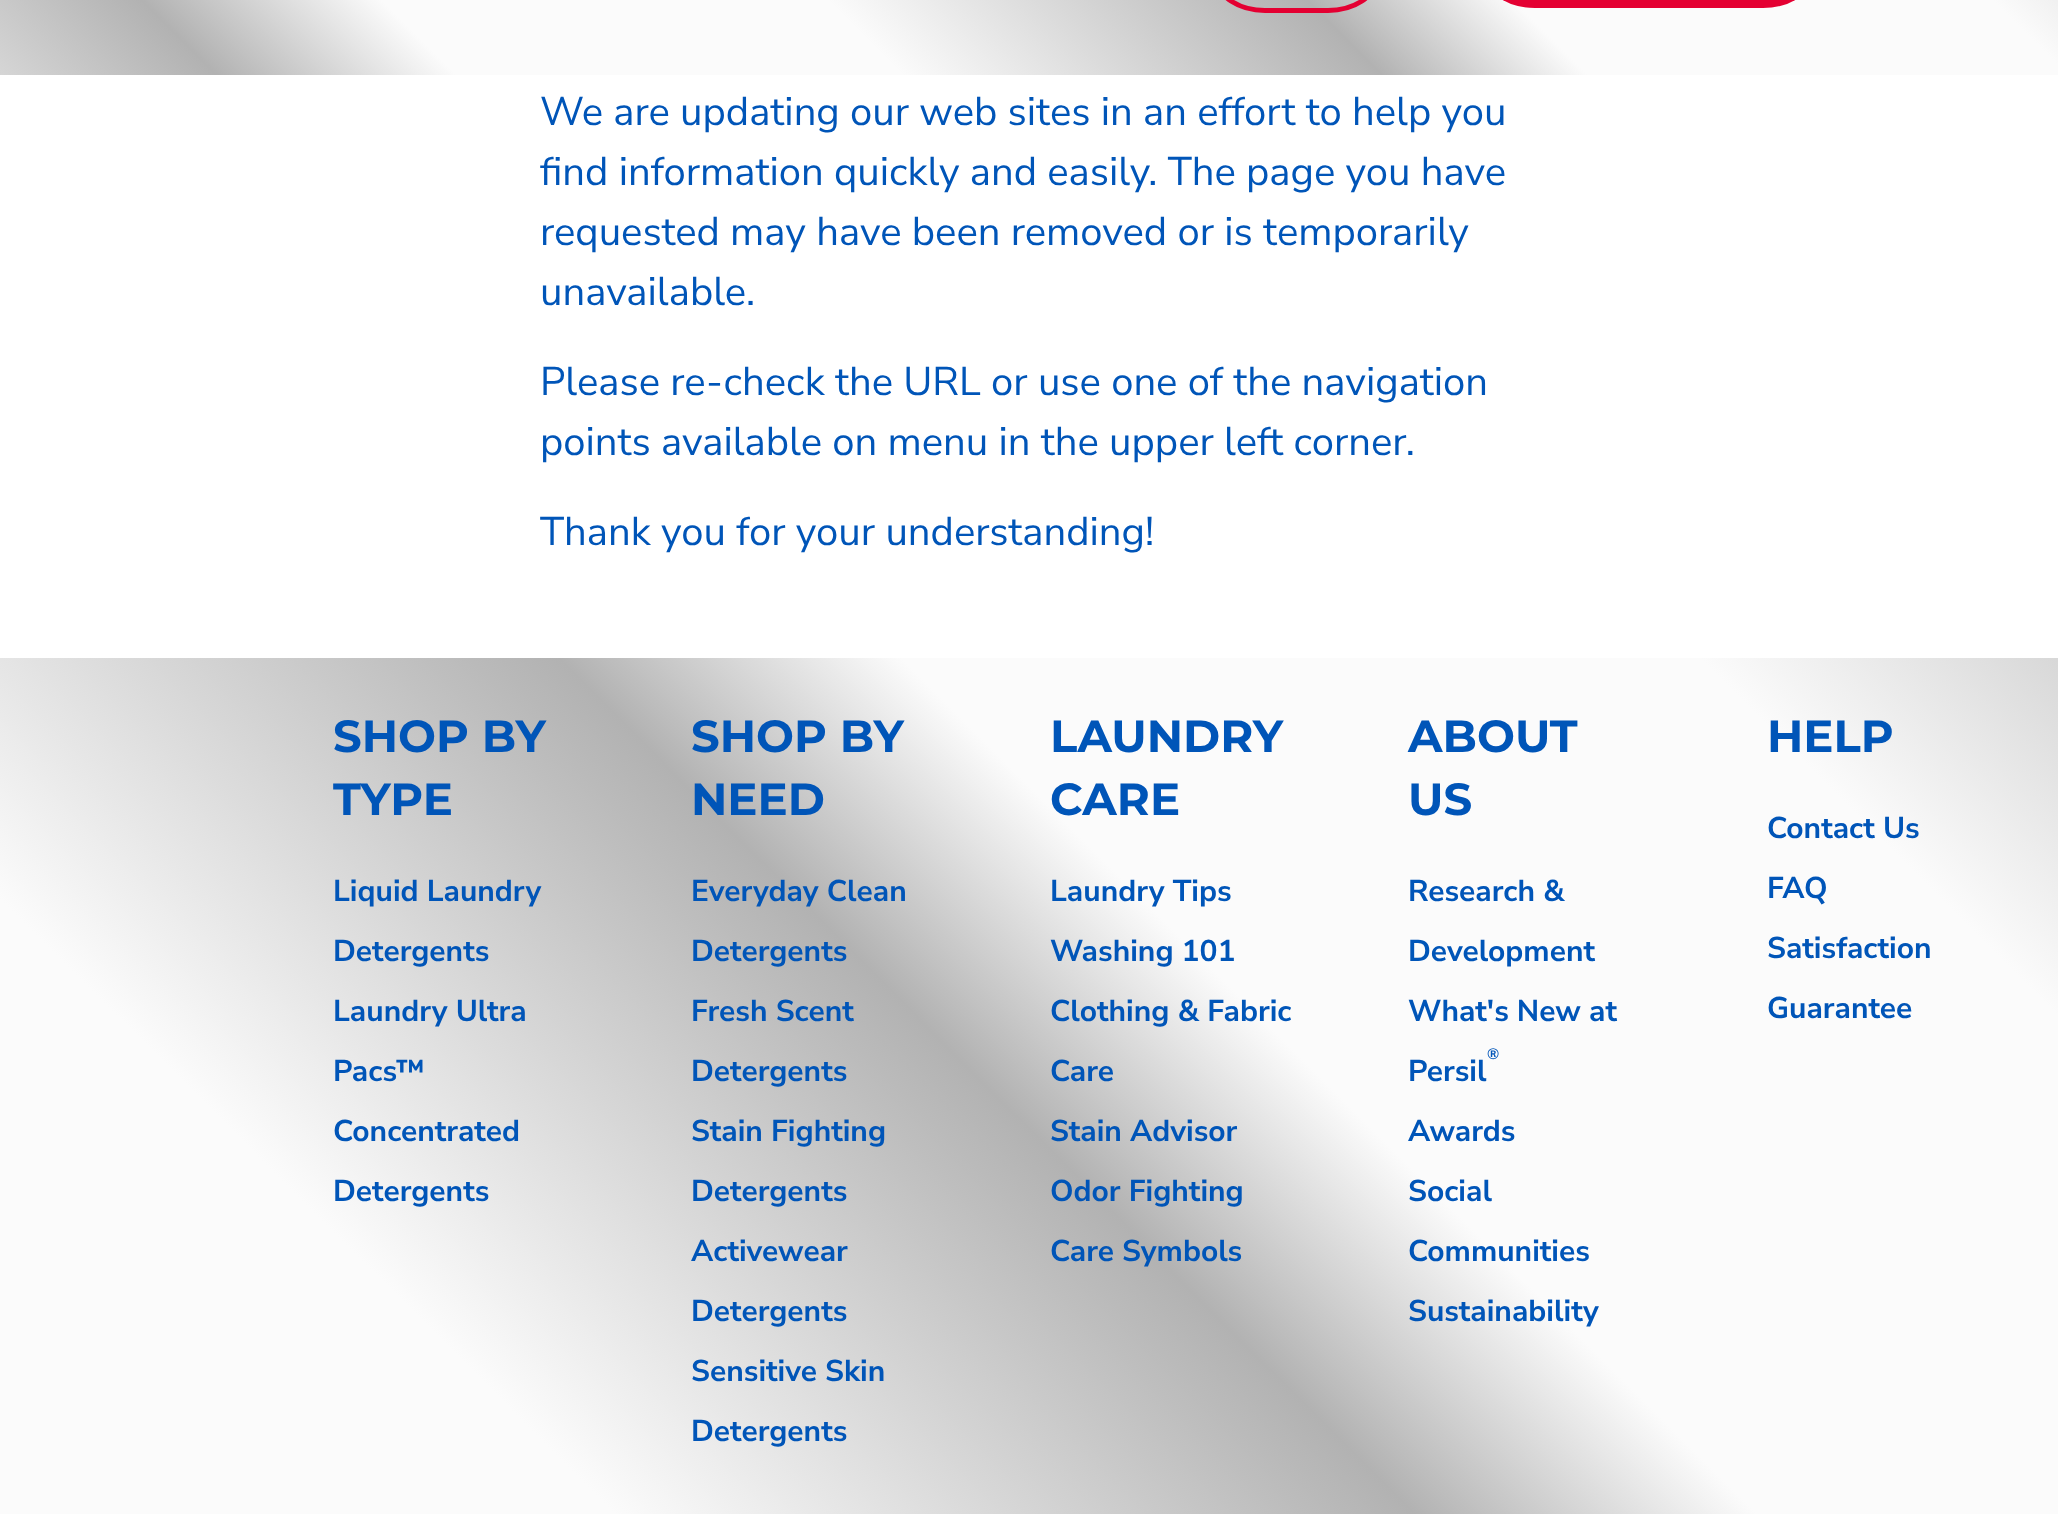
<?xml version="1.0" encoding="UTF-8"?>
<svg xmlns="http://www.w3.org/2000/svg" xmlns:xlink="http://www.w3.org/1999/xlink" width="2058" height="1514">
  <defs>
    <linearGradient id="g1" gradientUnits="userSpaceOnUse" x1="1.8" y1="991" x2="1715" y2="-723"><stop offset="0" stop-color="#b2b2b2" /><stop offset="0.07" stop-color="#fbfbfb" /><stop offset="0.2" stop-color="#fbfbfb" /><stop offset="0.33" stop-color="#b2b2b2" /><stop offset="0.4" stop-color="#fbfbfb" /><stop offset="0.53" stop-color="#fbfbfb" /><stop offset="0.67" stop-color="#b2b2b2" /><stop offset="0.73" stop-color="#fbfbfb" /><stop offset="0.87" stop-color="#fbfbfb" /><stop offset="1" stop-color="#b2b2b2" /></linearGradient>
    <linearGradient id="g2" gradientUnits="userSpaceOnUse" x1="-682" y1="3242" x2="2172" y2="388"><stop offset="0" stop-color="#b2b2b2" /><stop offset="0.07" stop-color="#fbfbfb" /><stop offset="0.2" stop-color="#fbfbfb" /><stop offset="0.33" stop-color="#b2b2b2" /><stop offset="0.4" stop-color="#fbfbfb" /><stop offset="0.53" stop-color="#fbfbfb" /><stop offset="0.67" stop-color="#b2b2b2" /><stop offset="0.73" stop-color="#fbfbfb" /><stop offset="0.87" stop-color="#fbfbfb" /><stop offset="1" stop-color="#b2b2b2" /></linearGradient>
  </defs>
  <rect width="100%" height="100%" fill="#ffffff" />
  <rect width="2058" height="75" fill="url(#g1)" />
  <rect x="1217.5" y="-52.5" width="158" height="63" rx="47.5" fill="none" stroke="#e40032" stroke-width="5" />
  <rect x="1490" y="-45" width="318" height="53" rx="45" fill="#e40032" />
  <rect y="658" width="2058" height="856" fill="url(#g2)" />
  <text x="540" y="125" style="font-family: Nunito Sans; font-size: 40px; fill: #0055b8">We are updating our web sites in an effort to help you</text>
  <text x="540" y="185" style="font-family: Nunito Sans; font-size: 40px; fill: #0055b8">find information quickly and easily. The page you have</text>
  <text x="540" y="245" style="font-family: Nunito Sans; font-size: 40px; fill: #0055b8">requested may have been removed or is temporarily</text>
  <text x="540" y="305" style="font-family: Nunito Sans; font-size: 40px; fill: #0055b8">unavailable.</text>
  <text x="540" y="395" style="font-family: Nunito Sans; font-size: 40px; fill: #0055b8">Please re-check the URL or use one of the navigation</text>
  <text x="540" y="455" style="font-family: Nunito Sans; font-size: 40px; fill: #0055b8">points available on menu in the upper left corner.</text>
  <text x="540" y="545" style="font-family: Nunito Sans; font-size: 40px; fill: #0055b8">Thank you for your understanding!</text>
  <text x="333" y="752" style="font-family: Montserrat; font-size: 45px; font-weight: bold; fill: #0055b8">SHOP BY</text>
  <text x="333" y="815" style="font-family: Montserrat; font-size: 45px; font-weight: bold; fill: #0055b8">TYPE</text>
  <text x="333" y="901" style="font-family: Nunito Sans; font-size: 30px; font-weight: bold; fill: #0055b8">Liquid Laundry</text>
  <text x="333" y="961" style="font-family: Nunito Sans; font-size: 30px; font-weight: bold; fill: #0055b8">Detergents</text>
  <text x="333" y="1021" style="font-family: Nunito Sans; font-size: 30px; font-weight: bold; fill: #0055b8">Laundry Ultra</text>
  <text x="333" y="1081" style="font-family: Nunito Sans; font-size: 30px; font-weight: bold; fill: #0055b8">Pacs</text>
  <text x="396" y="1081" style="font-family: Nunito Sans; font-size: 30px; font-weight: bold; fill: #0055b8">™</text>
  <text x="333" y="1141" style="font-family: Nunito Sans; font-size: 30px; font-weight: bold; fill: #0055b8">Concentrated</text>
  <text x="333" y="1201" style="font-family: Nunito Sans; font-size: 30px; font-weight: bold; fill: #0055b8">Detergents</text>
  <text x="691" y="752" style="font-family: Montserrat; font-size: 45px; font-weight: bold; fill: #0055b8">SHOP BY</text>
  <text x="691" y="815" style="font-family: Montserrat; font-size: 45px; font-weight: bold; fill: #0055b8">NEED</text>
  <text x="691" y="901" style="font-family: Nunito Sans; font-size: 30px; font-weight: bold; fill: #0055b8">Everyday Clean</text>
  <text x="691" y="961" style="font-family: Nunito Sans; font-size: 30px; font-weight: bold; fill: #0055b8">Detergents</text>
  <text x="691" y="1021" style="font-family: Nunito Sans; font-size: 30px; font-weight: bold; fill: #0055b8">Fresh Scent</text>
  <text x="691" y="1081" style="font-family: Nunito Sans; font-size: 30px; font-weight: bold; fill: #0055b8">Detergents</text>
  <text x="691" y="1141" style="font-family: Nunito Sans; font-size: 30px; font-weight: bold; fill: #0055b8">Stain Fighting</text>
  <text x="691" y="1201" style="font-family: Nunito Sans; font-size: 30px; font-weight: bold; fill: #0055b8">Detergents</text>
  <text x="691" y="1261" style="font-family: Nunito Sans; font-size: 30px; font-weight: bold; fill: #0055b8">Activewear</text>
  <text x="691" y="1321" style="font-family: Nunito Sans; font-size: 30px; font-weight: bold; fill: #0055b8">Detergents</text>
  <text x="691" y="1381" style="font-family: Nunito Sans; font-size: 30px; font-weight: bold; fill: #0055b8">Sensitive Skin</text>
  <text x="691" y="1441" style="font-family: Nunito Sans; font-size: 30px; font-weight: bold; fill: #0055b8">Detergents</text>
  <text x="1050" y="752" style="font-family: Montserrat; font-size: 45px; font-weight: bold; fill: #0055b8">LAUNDRY</text>
  <text x="1050" y="815" style="font-family: Montserrat; font-size: 45px; font-weight: bold; fill: #0055b8">CARE</text>
  <text x="1050" y="901" style="font-family: Nunito Sans; font-size: 30px; font-weight: bold; fill: #0055b8">Laundry Tips</text>
  <text x="1050" y="961" style="font-family: Nunito Sans; font-size: 30px; font-weight: bold; fill: #0055b8">Washing 101</text>
  <text x="1050" y="1021" style="font-family: Nunito Sans; font-size: 30px; font-weight: bold; fill: #0055b8">Clothing &amp; Fabric</text>
  <text x="1050" y="1081" style="font-family: Nunito Sans; font-size: 30px; font-weight: bold; fill: #0055b8">Care</text>
  <text x="1050" y="1141" style="font-family: Nunito Sans; font-size: 30px; font-weight: bold; fill: #0055b8">Stain Advisor</text>
  <text x="1050" y="1201" style="font-family: Nunito Sans; font-size: 30px; font-weight: bold; fill: #0055b8">Odor Fighting</text>
  <text x="1050" y="1261" style="font-family: Nunito Sans; font-size: 30px; font-weight: bold; fill: #0055b8">Care Symbols</text>
  <text x="1408" y="752" style="font-family: Montserrat; font-size: 45px; font-weight: bold; fill: #0055b8">ABOUT</text>
  <text x="1408" y="815" style="font-family: Montserrat; font-size: 45px; font-weight: bold; fill: #0055b8">US</text>
  <text x="1408" y="901" style="font-family: Nunito Sans; font-size: 30px; font-weight: bold; fill: #0055b8">Research &amp;</text>
  <text x="1408" y="961" style="font-family: Nunito Sans; font-size: 30px; font-weight: bold; fill: #0055b8">Development</text>
  <text x="1408" y="1021" style="font-family: Nunito Sans; font-size: 30px; font-weight: bold; fill: #0055b8">What's New at</text>
  <text x="1487" y="1059" style="font-family: Nunito Sans; font-size: 15px; font-weight: bold; fill: #0055b8">®</text>
  <text x="1408" y="1081" style="font-family: Nunito Sans; font-size: 30px; font-weight: bold; fill: #0055b8">Persil</text>
  <text x="1408" y="1141" style="font-family: Nunito Sans; font-size: 30px; font-weight: bold; fill: #0055b8">Awards</text>
  <text x="1408" y="1201" style="font-family: Nunito Sans; font-size: 30px; font-weight: bold; fill: #0055b8">Social</text>
  <text x="1408" y="1261" style="font-family: Nunito Sans; font-size: 30px; font-weight: bold; fill: #0055b8">Communities</text>
  <text x="1408" y="1321" style="font-family: Nunito Sans; font-size: 30px; font-weight: bold; fill: #0055b8">Sustainability</text>
  <text x="1767" y="752" style="font-family: Montserrat; font-size: 45px; font-weight: bold; fill: #0055b8">HELP</text>
  <text x="1767" y="838" style="font-family: Nunito Sans; font-size: 30px; font-weight: bold; fill: #0055b8">Contact Us</text>
  <text x="1767" y="898" style="font-family: Nunito Sans; font-size: 30px; font-weight: bold; fill: #0055b8">FAQ</text>
  <text x="1767" y="958" style="font-family: Nunito Sans; font-size: 30px; font-weight: bold; fill: #0055b8">Satisfaction</text>
  <text x="1767" y="1018" style="font-family: Nunito Sans; font-size: 30px; font-weight: bold; fill: #0055b8">Guarantee</text>
</svg>
